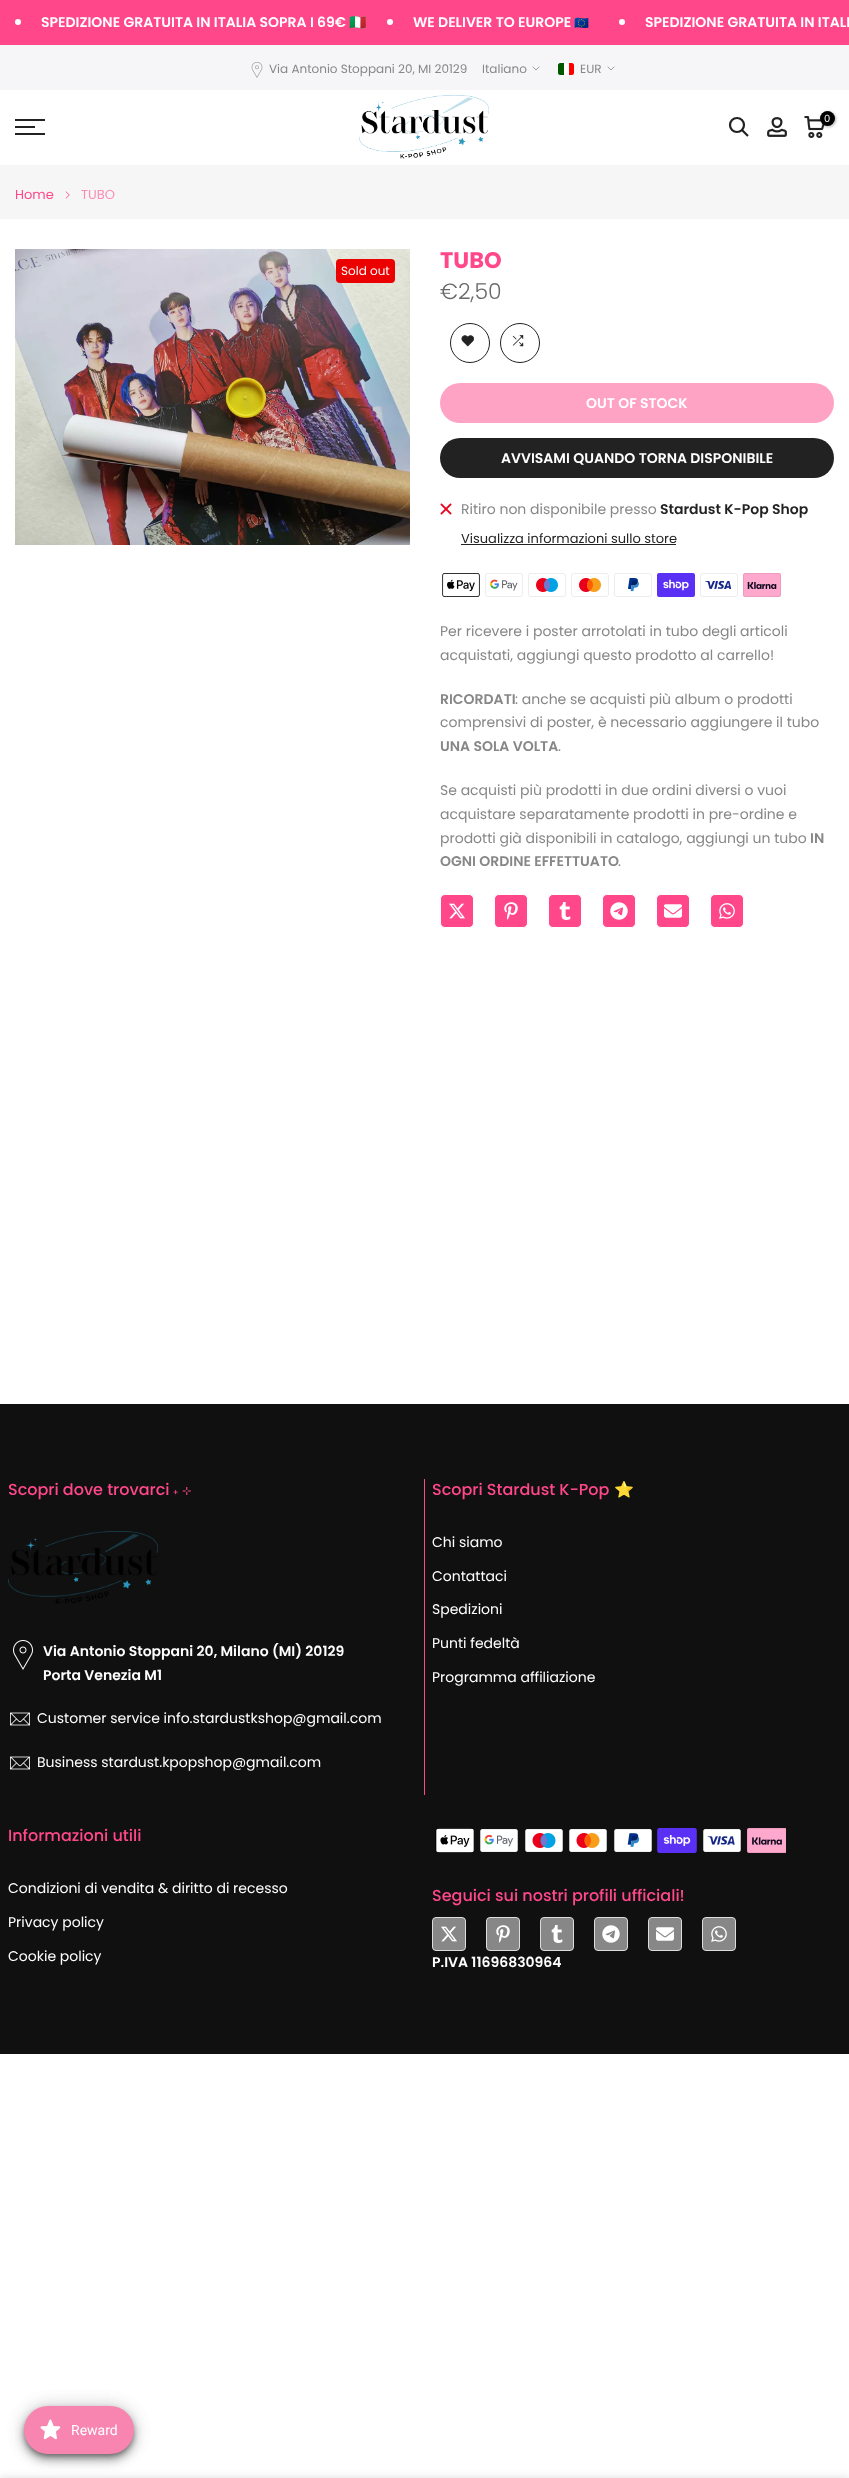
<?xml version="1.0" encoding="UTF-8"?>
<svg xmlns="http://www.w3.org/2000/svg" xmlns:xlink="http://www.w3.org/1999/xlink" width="849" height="2478">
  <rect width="100%" height="100%" fill="#ffffff" />
  <rect width="849" height="45" fill="#ff478a" />
  <circle cx="18" cy="22" r="3" fill="#ffffff" />
  <circle cx="390" cy="22" r="3" fill="#ffffff" />
  <circle cx="622" cy="22" r="3" fill="#ffffff" />
  <rect y="45" width="849" height="45" fill="#f6f6f8" />
  <image x="251" y="62" width="12" height="16" xlink:href="image1.png" />
  <path d="M 539 67 l -3 3 l -3 -3" fill="none" stroke="#878787" stroke-width="0.8" stroke-linecap="square" />
  <rect x="558" y="63" width="16" height="12" rx="2" fill="#ffffff" />
  <path d="M 560 63 h 4 v 12 h -4 c -1 0 -2 -1 -2 -2 v -8 c 0 -1 1 -2 2 -2 z" fill="#005700" />
  <path d="M 569 63 h 3 c 1 0 2 1 2 2 v 8 c 0 1 -1 2 -2 2 h -3 z" fill="#fc0000" />
  <path d="M 614 67 l -3 3 l -3 -3" fill="none" stroke="#878787" stroke-width="0.8" stroke-linecap="square" />
  <image x="359" y="95" width="130" height="64" xlink:href="image2.png" />
  <circle cx="737" cy="125" r="7" fill="none" stroke="#222222" stroke-width="2.2" />
  <path d="M 742 130 l 6 6" fill="none" stroke="#222222" stroke-width="2.2" />
  <image x="767" y="117" width="20" height="20" xlink:href="image3.png" />
  <image x="804" y="116" width="21" height="22" xlink:href="image4.png" />
  <rect x="821" y="112" width="15" height="15" rx="7.5" fill="#000000" fill-opacity="0.3" filter="blur(1.5px)" />
  <circle cx="827.5" cy="118.5" r="7.5" fill="#000000" />
  <rect x="15" y="119" width="30" height="2" fill="#222222" />
  <rect x="15" y="126" width="20" height="2" fill="#222222" />
  <rect x="15" y="133" width="30" height="2" fill="#222222" />
  <rect y="165" width="849" height="54" fill="#f6f6f6" />
  <image x="65" y="191" width="5" height="8" xlink:href="image5.png" />
  <image x="15" y="249" width="395" height="296" xlink:href="image6.png" />
  <rect x="336" y="259" width="59" height="24" rx="4" fill="#ec0101" />
  <circle cx="470" cy="343" r="19.5" fill="none" stroke="#222222" />
  <image x="461" y="335" width="13" height="12" xlink:href="image7.png" />
  <circle cx="520" cy="343" r="19.5" fill="none" stroke="#222222" />
  <image x="512" y="335" width="12" height="12" xlink:href="image8.png" />
  <rect x="440" y="383" width="394" height="40" rx="20" fill="#ffa3c5" />
  <rect x="440" y="438" width="394" height="40" rx="20" fill="#222222" />
  <image x="440" y="503" width="12" height="12" xlink:href="image9.png" />
  <rect x="461" y="544" width="215" height="1" fill="#222222" />
  <image x="442" y="573" width="38" height="24" xlink:href="image10.png" />
  <image x="485" y="573" width="38" height="24" xlink:href="image11.png" />
  <image x="528" y="573" width="38" height="24" xlink:href="image12.png" />
  <image x="571" y="573" width="38" height="24" xlink:href="image13.png" />
  <image x="614" y="573" width="38" height="24" xlink:href="image14.png" />
  <image x="657" y="573" width="38" height="24" xlink:href="image15.png" />
  <image x="700" y="573" width="38" height="24" xlink:href="image16.png" />
  <image x="743" y="573" width="38" height="24" xlink:href="image17.png" />
  <rect x="440.5" y="894.5" width="33" height="33" rx="4.5" fill="#ff478a" stroke="#ffffff" />
  <image x="449" y="903" width="16" height="16" xlink:href="image18.png" />
  <rect x="494.5" y="894.5" width="33" height="33" rx="4.5" fill="#ff478a" stroke="#ffffff" />
  <image x="504" y="902" width="14" height="18" xlink:href="image19.png" />
  <rect x="548.5" y="894.5" width="33" height="33" rx="4.5" fill="#ff478a" stroke="#ffffff" />
  <image x="559" y="902" width="12" height="18" xlink:href="image20.png" />
  <rect x="602.5" y="894.5" width="33" height="33" rx="4.5" fill="#ff478a" stroke="#ffffff" />
  <image x="610" y="902" width="18" height="18" xlink:href="image21.png" />
  <rect x="656.5" y="894.5" width="33" height="33" rx="4.5" fill="#ff478a" stroke="#ffffff" />
  <image x="664" y="904" width="18" height="14" xlink:href="image22.png" />
  <rect x="710.5" y="894.5" width="33" height="33" rx="4.5" fill="#ff478a" stroke="#ffffff" />
  <image x="719" y="903" width="16" height="16" xlink:href="image23.png" />
  <rect y="1404" width="849" height="650" fill="#101010" />
  <rect x="424" y="1479" width="1" height="316" fill="#ff478a" />
  <image x="8" y="1531" width="150" height="73" xlink:href="image24.png" />
  <image x="13" y="1640" width="20" height="30" xlink:href="image25.png" />
  <image x="10" y="1712" width="20" height="14" xlink:href="image26.png" />
  <image x="10" y="1756" width="20" height="14" xlink:href="image26.png" />
  <image x="435" y="1828" width="39" height="25" xlink:href="image27.png" />
  <image x="480" y="1829" width="38" height="23" xlink:href="image28.png" />
  <image x="525" y="1829" width="38" height="23" xlink:href="image29.png" />
  <image x="569" y="1829" width="38" height="23" xlink:href="image30.png" />
  <image x="614" y="1829" width="38" height="23" xlink:href="image31.png" />
  <image x="657" y="1828" width="40" height="25" xlink:href="image32.png" />
  <image x="703" y="1829" width="38" height="23" xlink:href="image33.png" />
  <image x="747" y="1828" width="39" height="25" xlink:href="image34.png" />
  <rect x="432.5" y="1917.5" width="33" height="33" rx="3.5" fill="#878787" stroke="#dddddd" />
  <image x="441" y="1926" width="16" height="16" xlink:href="image35.png" />
  <rect x="486.5" y="1917.5" width="33" height="33" rx="3.5" fill="#878787" stroke="#dddddd" />
  <image x="496" y="1925" width="14" height="18" xlink:href="image36.png" />
  <rect x="540.5" y="1917.5" width="33" height="33" rx="3.5" fill="#878787" stroke="#dddddd" />
  <image x="551" y="1925" width="12" height="18" xlink:href="image37.png" />
  <rect x="594.5" y="1917.5" width="33" height="33" rx="3.5" fill="#878787" stroke="#dddddd" />
  <image x="602" y="1925" width="18" height="18" xlink:href="image38.png" />
  <rect x="648.5" y="1917.5" width="33" height="33" rx="3.5" fill="#878787" stroke="#dddddd" />
  <image x="656" y="1927" width="18" height="14" xlink:href="image39.png" />
  <rect x="702.5" y="1917.5" width="33" height="33" rx="3.5" fill="#878787" stroke="#dddddd" />
  <image x="711" y="1926" width="16" height="16" xlink:href="image40.png" />
  <rect x="24" y="2407" width="110" height="48" rx="24" fill="#000000" fill-opacity="0.12" filter="blur(9px)" />
  <rect x="24" y="2412" width="110" height="48" rx="24" fill="#000000" fill-opacity="0.14" filter="blur(5px)" />
  <rect x="25" y="2410" width="108" height="46" rx="23" fill="#000000" fill-opacity="0.2" filter="blur(2.5px)" />
  <rect x="24" y="2407" width="110" height="48" rx="24" fill="#000000" fill-opacity="0.12" filter="blur(9px)" />
  <rect x="24" y="2412" width="110" height="48" rx="24" fill="#000000" fill-opacity="0.14" filter="blur(5px)" />
  <rect x="25" y="2410" width="108" height="46" rx="23" fill="#000000" fill-opacity="0.2" filter="blur(2.5px)" />
  <rect x="24" y="2406" width="110" height="48" rx="24" fill="#f884b0" />
  <image x="40" y="2419" width="21" height="21" xlink:href="image41.png" />
  <rect y="2478" width="849" height="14" fill="#000000" fill-opacity="0.14" filter="blur(4.5px)" />
  <text x="41" y="27" style="font-family: Poppins; font-size: 14px; font-weight: 600; fill: #ffffff">SPEDIZIONE GRATUITA IN ITALIA SOPRA I 69€</text>
  <text x="349" y="27" style="font-family: Noto Color Emoji; font-size: 14px; font-weight: bold; fill: #ffffff">🇮🇹</text>
  <text x="413" y="27" style="font-family: Poppins; font-size: 14px; font-weight: 600; fill: #ffffff">WE DELIVER TO EUROPE</text>
  <text x="574" y="27" style="font-family: Noto Color Emoji; font-size: 12px; fill: #ffffff">🇪🇺</text>
  <text x="645" y="27" style="font-family: Poppins; font-size: 14px; font-weight: 600; fill: #ffffff">SPEDIZIONE GRATUITA IN ITALI</text>
  <text x="269" y="73" style="font-family: Poppins; font-size: 12px; fill: #878787">Via Antonio Stoppani 20, MI 20129</text>
  <text x="482" y="73" style="font-family: Poppins; font-size: 12px; fill: #878787">Italiano</text>
  <text x="580" y="73" style="font-family: Poppins; font-size: 12px; fill: #878787">EUR</text>
  <text x="824" y="122" style="font-family: Poppins; font-size: 10px; fill: #ffffff">0</text>
  <text x="15" y="199" style="font-family: Poppins; font-size: 13px; fill: #ff478a">Home</text>
  <text x="81" y="199" style="font-family: Poppins; font-size: 13px; fill: #fb8db5">TUBO</text>
  <text x="341" y="275" style="font-family: Poppins; font-size: 12px; fill: #ffffff">Sold out</text>
  <text x="440" y="268" style="font-family: Poppins; font-size: 22.5px; font-weight: bold; fill: #ff478a">TUBO</text>
  <text x="440" y="299" style="font-family: Poppins; font-size: 22px; font-weight: 300; fill: #696969">€2,50</text>
  <text x="586" y="408" style="font-family: Poppins; font-size: 14px; font-weight: 600; fill: #ffffff">OUT OF STOCK</text>
  <text x="501" y="463" style="font-family: Poppins; font-size: 14px; font-weight: 600; fill: #ffffff">AVVISAMI QUANDO TORNA DISPONIBILE</text>
  <text x="461" y="514" style="font-family: Poppins; font-size: 14px; fill: #878787">Ritiro non disponibile presso</text>
  <text x="660" y="514" style="font-family: Poppins; font-size: 14px; font-weight: 600; fill: #222222">Stardust K-Pop Shop</text>
  <text x="461" y="543" style="font-family: Poppins; font-size: 13px; fill: #222222">Visualizza informazioni sullo store</text>
  <text x="440" y="636" style="font-family: Poppins; font-size: 14px; fill: #878787">Per ricevere i poster arrotolati in tubo degli articoli</text>
  <text x="440" y="660" style="font-family: Poppins; font-size: 14px; fill: #878787">acquistati, aggiungi questo prodotto al carrello!</text>
  <text x="440" y="704" style="font-family: Poppins; font-size: 14px; font-weight: 600; fill: #878787">RICORDATI</text>
  <text x="515" y="704" style="font-family: Poppins; font-size: 14px; fill: #878787">: anche se acquisti più album o prodotti</text>
  <text x="440" y="727" style="font-family: Poppins; font-size: 14px; fill: #878787">comprensivi di poster, è necessario aggiungere il tubo</text>
  <text x="440" y="751" style="font-family: Poppins; font-size: 14px; font-weight: 600; fill: #878787">UNA SOLA VOLTA</text>
  <text x="558" y="751" style="font-family: Poppins; font-size: 14px; fill: #878787">.</text>
  <text x="440" y="795" style="font-family: Poppins; font-size: 14px; fill: #878787">Se acquisti più prodotti in due ordini diversi o vuoi</text>
  <text x="440" y="819" style="font-family: Poppins; font-size: 14px; fill: #878787">acquistare separatamente prodotti in pre-ordine e</text>
  <text x="440" y="843" style="font-family: Poppins; font-size: 14px; fill: #878787">prodotti già disponibili in catalogo, aggiungi un tubo</text>
  <text x="810" y="843" style="font-family: Poppins; font-size: 14px; font-weight: 600; fill: #878787">IN</text>
  <text x="440" y="866" style="font-family: Poppins; font-size: 14px; font-weight: 600; fill: #878787">OGNI ORDINE EFFETTUATO</text>
  <text x="618" y="866" style="font-family: Poppins; font-size: 14px; fill: #878787">.</text>
  <text x="8" y="1495" style="font-family: Poppins; font-size: 16px; font-weight: 500; fill: #ff478a">Scopri dove trovarci</text>
  <text x="173" y="1495" style="font-family: FreeSerif; font-size: 16px; fill: #ff478a">˖ ⊹</text>
  <text x="43" y="1656" style="font-family: Poppins; font-size: 14px; font-weight: 600; fill: #ffffff">Via Antonio Stoppani 20, Milano (MI) 20129</text>
  <text x="43" y="1680" style="font-family: Poppins; font-size: 14px; font-weight: 600; fill: #ffffff">Porta Venezia M1</text>
  <text x="37" y="1723" style="font-family: Poppins; font-size: 14px; fill: #ffffff">Customer service info.stardustkshop@gmail.com</text>
  <text x="37" y="1767" style="font-family: Poppins; font-size: 14px; fill: #ffffff">Business stardust.kpopshop@gmail.com</text>
  <text x="432" y="1495" style="font-family: Poppins; font-size: 16px; font-weight: 500; fill: #ff478a">Scopri Stardust K-Pop</text>
  <text x="614" y="1495" style="font-family: Noto Color Emoji; font-size: 16px; fill: #ff478a">⭐️</text>
  <text x="432" y="1547" style="font-family: Poppins; font-size: 14px; fill: #ffffff">Chi siamo</text>
  <text x="432" y="1581" style="font-family: Poppins; font-size: 14px; fill: #ffffff">Contattaci</text>
  <text x="432" y="1614" style="font-family: Poppins; font-size: 14px; fill: #ffffff">Spedizioni</text>
  <text x="432" y="1648" style="font-family: Poppins; font-size: 14px; fill: #ffffff">Punti fedeltà</text>
  <text x="432" y="1682" style="font-family: Poppins; font-size: 14px; fill: #ffffff">Programma affiliazione</text>
  <text x="8" y="1841" style="font-family: Poppins; font-size: 16px; font-weight: 500; fill: #ff478a">Informazioni utili</text>
  <text x="8" y="1893" style="font-family: Poppins; font-size: 14px; fill: #ffffff">Condizioni di vendita &amp; diritto di recesso</text>
  <text x="8" y="1927" style="font-family: Poppins; font-size: 14px; fill: #ffffff">Privacy policy</text>
  <text x="8" y="1961" style="font-family: Poppins; font-size: 14px; fill: #ffffff">Cookie policy</text>
  <text x="432" y="1901" style="font-family: Poppins; font-size: 16px; font-weight: 500; fill: #ff478a">Seguici sui nostri profili ufficiali!</text>
  <text x="432" y="1967" style="font-family: Poppins; font-size: 14px; font-weight: 600; fill: #ffffff">P.IVA 11696830964</text>
  <text x="71" y="2435" style="font-family: Roboto; font-size: 14px; fill: #ffffff">Reward</text>
</svg>
